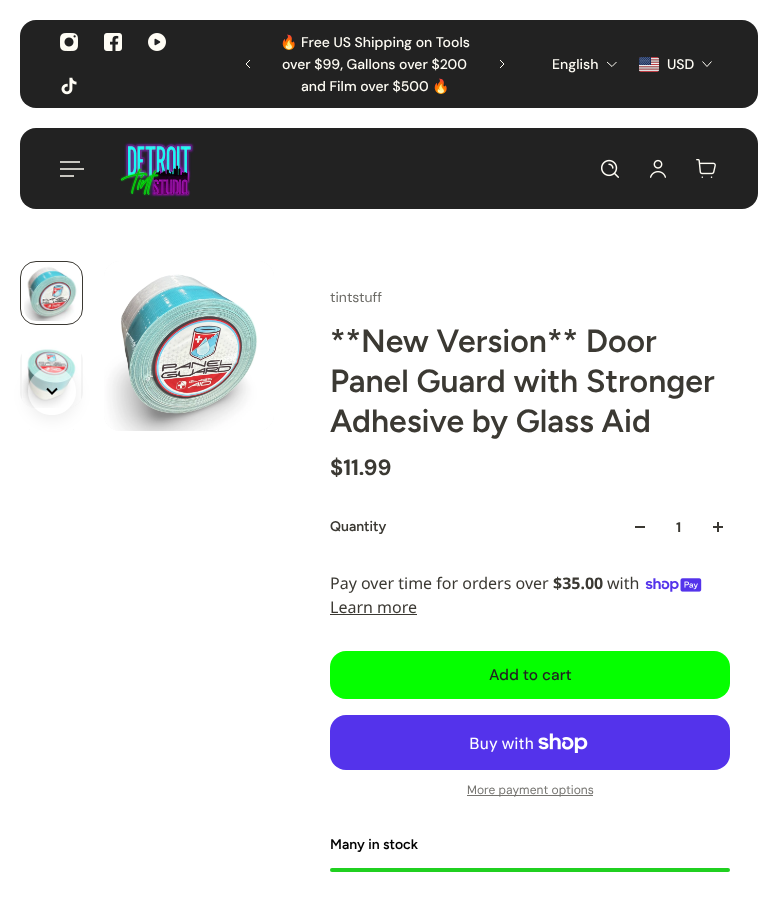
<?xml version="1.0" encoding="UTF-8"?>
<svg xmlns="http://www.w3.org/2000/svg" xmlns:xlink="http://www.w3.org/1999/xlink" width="778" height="912">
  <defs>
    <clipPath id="clip1"><rect x="20" y="261" width="64" height="170" rx="16" /></clipPath>
    <clipPath id="clip2"><path d="M 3 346 h 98 v 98 h -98 z m 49 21 c 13.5 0 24 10.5 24 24 c 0 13.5 -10.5 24 -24 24 c -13.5 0 -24 -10.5 -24 -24 c 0 -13.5 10.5 -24 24 -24 z" clip-rule="evenodd" /></clipPath>
  </defs>
  <rect width="100%" height="100%" fill="#ffffff" />
  <rect x="20" y="20" width="738" height="88" rx="16" fill="#222222" />
  <image x="60" y="33" width="18" height="18" xlink:href="image1.png" />
  <image x="104" y="33" width="18" height="18" xlink:href="image2.png" />
  <image x="148" y="33" width="18" height="18" xlink:href="image3.png" />
  <image x="61" y="77" width="16" height="18" xlink:href="image4.png" />
  <path d="M 250 60 l -4 4 l 4 4" fill="none" stroke="#fffdf5" />
  <path d="M 500 60 l 4 4 l -4 4" fill="none" stroke="#fffdf5" />
  <path d="M 616.5 62 l -4.5 4.5 l -5 -4.5" fill="none" stroke="#fffdf5" />
  <image x="639" y="57" width="20" height="15" xlink:href="image5.png" />
  <path d="M 711.5 61.5 l -4.5 5 l -4.5 -5" fill="none" stroke="#fffdf5" />
  <rect x="20" y="128" width="738" height="81" rx="16" fill="#222222" />
  <rect x="60" y="161" width="20" height="2" fill="#c8c6c0" />
  <rect x="60" y="168" width="24" height="2" fill="#c8c6c0" />
  <rect x="60" y="175" width="14" height="2" fill="#c8c6c0" />
  <image x="119" y="142" width="76" height="55" xlink:href="image6.png" />
  <image x="601" y="159" width="18" height="19" xlink:href="image7.png" />
  <image x="650" y="159" width="16" height="19" xlink:href="image8.png" />
  <image x="696" y="159" width="20" height="19" xlink:href="image9.png" />
  <image x="22" y="261" width="60" height="62" xlink:href="image10.png" />
  <rect x="22" y="263" width="59" height="60" rx="14" fill="none" stroke="#ffffff" stroke-width="4" />
  <rect x="20.5" y="261.5" width="62" height="63" rx="15.5" fill="none" stroke="#3b3933" />
  <rect x="20" y="345" width="63" height="63" rx="16" fill="#f5f5f5" />
  <image x="22" y="345" width="59" height="63" xlink:href="image11.png" />
  <g clip-path="url(#clip1)">
    <path d="M 36 428 h 31 c 9 0 16 7 16 16 v -13 h -63 v 13 c 0 -9 7 -16 16 -16 z" fill="#f5f5f5" />
  </g>
  <rect x="30" y="428" width="43" height="3" fill="#ffffff" />
  <g clip-path="url(#clip2)">
    <rect x="28" y="371" width="48" height="48" rx="24" fill="#000000" fill-opacity="0.08" filter="blur(8px)" />
  </g>
  <circle cx="52" cy="391" r="24" fill="#ffffff" fill-opacity="0.5" />
  <path d="M 57 388.5 l -5 5 l -5 -5" fill="none" stroke="#000000" stroke-width="2" />
  <rect x="104" y="261" width="170" height="170" rx="16" fill="#f5f5f5" />
  <image x="104" y="261" width="170" height="170" xlink:href="image12.png" />
  <rect x="635" y="526" width="10" height="2" fill="#3b3933" />
  <rect x="713" y="526" width="10" height="2" fill="#3b3933" />
  <rect x="717" y="522" width="2" height="10" fill="#3b3933" />
  <image x="645" y="578" width="57" height="14" xlink:href="image13.png" />
  <rect x="330" y="614" width="87" height="1" fill="#3b3933" />
  <rect x="330" y="651" width="400" height="48" rx="16" fill="#05ff00" />
  <rect x="330" y="715" width="400" height="55" rx="16" fill="#5433eb" />
  <image x="538" y="733" width="50" height="20" xlink:href="image14.png" />
  <rect x="467" y="795" width="126" height="1" fill="#767470" />
  <rect x="330" y="868" width="400" height="4" rx="2" fill="#20d020" />
  <text x="280" y="47" style="font-family: Noto Color Emoji; font-size: 14px; fill: #fffdf5">🔥</text>
  <text x="301" y="47" style="font-family: 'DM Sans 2'; font-size: 14px; font-weight: 500; fill: #fffdf5">Free US Shipping on Tools</text>
  <text x="282" y="69" style="font-family: 'DM Sans 2'; font-size: 14px; font-weight: 500; fill: #fffdf5">over $99, Gallons over $200</text>
  <text x="301" y="91" style="font-family: 'DM Sans 2'; font-size: 14px; font-weight: 500; fill: #fffdf5">and Film over $500</text>
  <text x="432" y="91" style="font-family: Noto Color Emoji; font-size: 14px; fill: #fffdf5">🔥</text>
  <text x="552" y="69" style="font-family: 'DM Sans 2'; font-size: 14px; font-weight: 500; fill: #fffdf5">English</text>
  <text x="667" y="69" style="font-family: 'DM Sans 2'; font-size: 14px; font-weight: 500; fill: #fffdf5">USD</text>
  <text x="330" y="302" style="font-family: 'DM Sans 2'; font-size: 14px; fill: #6c6b66">tintstuff</text>
  <text x="330" y="352" style="font-family: Figtree; font-size: 32px; font-weight: 600; fill: #3b3933">**New Version** Door</text>
  <text x="330" y="392" style="font-family: Figtree; font-size: 32px; font-weight: 600; fill: #3b3933">Panel Guard with Stronger</text>
  <text x="330" y="432" style="font-family: Figtree; font-size: 32px; font-weight: 600; fill: #3b3933">Adhesive by Glass Aid</text>
  <text x="330" y="475" style="font-family: 'DM Sans 2'; font-size: 22px; font-weight: bold; fill: #3b3933">$11.99</text>
  <text x="330" y="531" style="font-family: Figtree; font-size: 14px; font-weight: 600; fill: #3b3933">Quantity</text>
  <text x="676" y="532" style="font-family: DM Sans; font-size: 14px; font-weight: bold; fill: #3b3933">1</text>
  <text x="330" y="589" style="font-family: Noto Sans; font-size: 16px; fill: #3b3933">Pay over time for orders over</text>
  <text x="553" y="589" style="font-family: Noto Sans; font-size: 16px; font-weight: bold; fill: #3b3933">$35.00</text>
  <text x="607" y="589" style="font-family: Noto Sans; font-size: 16px; fill: #3b3933">with</text>
  <text x="330" y="613" style="font-family: Noto Sans; font-size: 16px; fill: #3b3933">Learn more</text>
  <text x="489" y="680" style="font-family: DM Sans; font-size: 15.5px; font-weight: 500; fill: #222222">Add to cart</text>
  <text x="469" y="749" style="font-family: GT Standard; font-size: 16px; fill: #ffffff">Buy with</text>
  <text x="467" y="794" style="font-family: DM Sans; font-size: 12px; fill: #757470">More payment options</text>
  <text x="330" y="849" style="font-family: Figtree; font-size: 14px; font-weight: 600; fill: #000000">Many in stock</text>
</svg>
